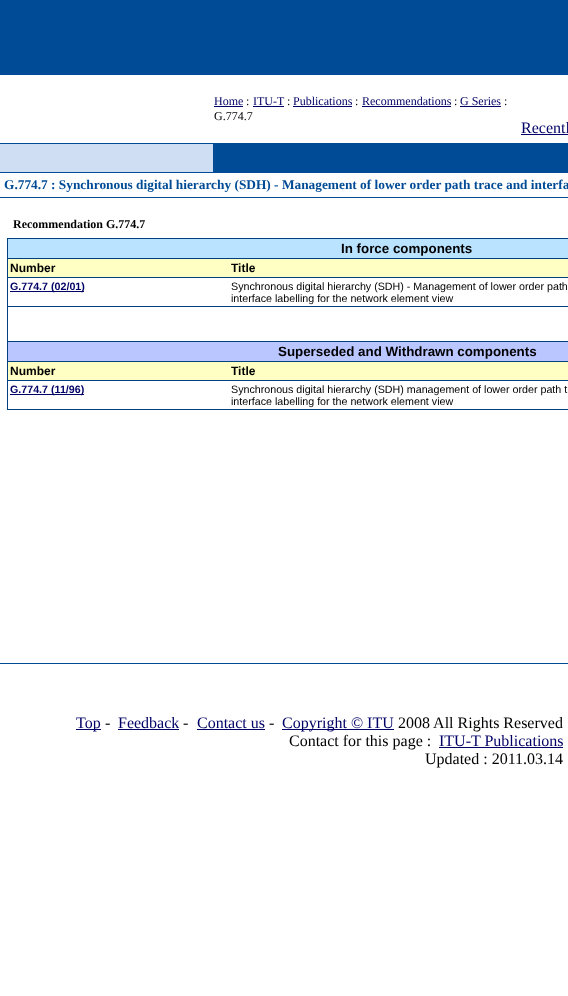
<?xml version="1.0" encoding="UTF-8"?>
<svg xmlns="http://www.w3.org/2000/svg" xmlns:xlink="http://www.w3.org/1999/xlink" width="568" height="996">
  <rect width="100%" height="100%" fill="#ffffff" />
  <rect width="568" height="75" fill="#004b96" />
  <rect x="214" y="106" width="29" height="1" fill="#000066" />
  <rect x="253" y="106" width="31" height="1" fill="#000066" />
  <rect x="293" y="106" width="59" height="1" fill="#000066" />
  <rect x="362" y="106" width="89" height="1" fill="#000066" />
  <rect x="460" y="106" width="41" height="1" fill="#000066" />
  <rect x="521" y="134" width="47" height="1" fill="#000066" />
  <rect y="144" width="213" height="28" fill="#cfdef3" />
  <rect y="143" width="214" height="1" fill="#004b96" />
  <rect x="213" y="143" width="355" height="30" fill="#004b96" />
  <rect y="172" width="214" height="1" fill="#004b96" />
  <rect y="197" width="568" height="1" fill="#004b96" />
  <rect y="663" width="568" height="1" fill="#004b96" />
  <rect x="7" y="238" width="561" height="172" fill="#004080" />
  <rect x="8" y="239" width="560" height="19" fill="#b9e3ff" />
  <rect x="8" y="259" width="560" height="18" fill="#ffffc4" />
  <rect x="8" y="278" width="560" height="28" fill="#ffffff" />
  <rect x="10" y="291" width="74" height="1" fill="#000066" />
  <rect x="8" y="307" width="560" height="34" fill="#ffffff" />
  <rect x="8" y="342" width="560" height="19" fill="#b9c6ff" />
  <rect x="8" y="362" width="560" height="18" fill="#ffffc4" />
  <rect x="8" y="381" width="560" height="28" fill="#ffffff" />
  <rect x="10" y="394" width="74" height="1" fill="#000066" />
  <rect x="76" y="729" width="25" height="1" fill="#000066" />
  <rect x="118" y="729" width="61" height="1" fill="#000066" />
  <rect x="197" y="729" width="68" height="1" fill="#000066" />
  <rect x="282" y="729" width="112" height="1" fill="#000066" />
  <rect x="439" y="747" width="124" height="1" fill="#000066" />
  <text x="214" y="105" style="font-family: Liberation Serif; font-size: 12px; fill: #000066">Home</text>
  <text x="246" y="105" style="font-family: Liberation Serif; font-size: 12px; fill: #000000">:</text>
  <text x="253" y="105" style="font-family: Liberation Serif; font-size: 12px; fill: #000066">ITU-T</text>
  <text x="287" y="105" style="font-family: Liberation Serif; font-size: 12px; fill: #000000">:</text>
  <text x="293" y="105" style="font-family: Liberation Serif; font-size: 12px; fill: #000066">Publications</text>
  <text x="355" y="105" style="font-family: Liberation Serif; font-size: 12px; fill: #000000">:</text>
  <text x="362" y="105" style="font-family: Liberation Serif; font-size: 12px; fill: #000066">Recommendations</text>
  <text x="454" y="105" style="font-family: Liberation Serif; font-size: 12px; fill: #000000">:</text>
  <text x="460" y="105" style="font-family: Liberation Serif; font-size: 12px; fill: #000066">G Series</text>
  <text x="504" y="105" style="font-family: Liberation Serif; font-size: 12px; fill: #000000">:</text>
  <text x="214" y="120" style="font-family: Liberation Serif; font-size: 12px; fill: #000000">G.774.7</text>
  <text x="521" y="133" style="font-family: Liberation Serif; font-size: 16px; fill: #000066">Recentl</text>
  <text x="4" y="189" style="font-family: Liberation Serif; font-size: 13.35px; font-weight: bold; fill: #004b96">G.774.7 : Synchronous digital hierarchy (SDH) - Management of lower order path trace and interfa</text>
  <text x="13" y="228" style="font-family: Liberation Serif; font-size: 12px; font-weight: bold; fill: #000000">Recommendation G.774.7</text>
  <text x="341" y="253" style="font-family: Liberation Sans; font-size: 13.35px; font-weight: bold; fill: #000000">In force components</text>
  <text x="10" y="272" style="font-family: Liberation Sans; font-size: 12px; font-weight: bold; fill: #000000">Number</text>
  <text x="231" y="272" style="font-family: Liberation Sans; font-size: 12px; font-weight: bold; fill: #000000">Title</text>
  <text x="10" y="290" style="font-family: Liberation Sans; font-size: 10.7px; font-weight: bold; fill: #000066">G.774.7 (02/01)</text>
  <text x="231" y="290" style="font-family: Liberation Sans; font-size: 10.7px; fill: #000000">Synchronous digital hierarchy (SDH) - Management of lower order path</text>
  <text x="231" y="302" style="font-family: Liberation Sans; font-size: 10.7px; fill: #000000">interface labelling for the network element view</text>
  <text x="278" y="356" style="font-family: Liberation Sans; font-size: 13.35px; font-weight: bold; fill: #000000">Superseded and Withdrawn components</text>
  <text x="10" y="375" style="font-family: Liberation Sans; font-size: 12px; font-weight: bold; fill: #000000">Number</text>
  <text x="231" y="375" style="font-family: Liberation Sans; font-size: 12px; font-weight: bold; fill: #000000">Title</text>
  <text x="10" y="393" style="font-family: Liberation Sans; font-size: 10.7px; font-weight: bold; fill: #000066">G.774.7 (11/96)</text>
  <text x="231" y="393" style="font-family: Liberation Sans; font-size: 10.7px; fill: #000000">Synchronous digital hierarchy (SDH) management of lower order path tr</text>
  <text x="231" y="405" style="font-family: Liberation Sans; font-size: 10.7px; fill: #000000">interface labelling for the network element view</text>
  <text x="76" y="728" style="font-family: Liberation Serif; font-size: 16px; fill: #000066">Top</text>
  <text x="105" y="728" style="font-family: Liberation Serif; font-size: 16px; fill: #000000">-</text>
  <text x="118" y="728" style="font-family: Liberation Serif; font-size: 16px; fill: #000066">Feedback</text>
  <text x="183" y="728" style="font-family: Liberation Serif; font-size: 16px; fill: #000000">-</text>
  <text x="197" y="728" style="font-family: Liberation Serif; font-size: 16px; fill: #000066">Contact us</text>
  <text x="269" y="728" style="font-family: Liberation Serif; font-size: 16px; fill: #000000">-</text>
  <text x="282" y="728" style="font-family: Liberation Serif; font-size: 16px; fill: #000066">Copyright © ITU</text>
  <text x="398" y="728" style="font-family: Liberation Serif; font-size: 16px; fill: #000000">2008 All Rights Reserved</text>
  <text x="289" y="746" style="font-family: Liberation Serif; font-size: 16px; fill: #000000">Contact for this page :</text>
  <text x="439" y="746" style="font-family: Liberation Serif; font-size: 16px; fill: #000066">ITU-T Publications</text>
  <text x="425" y="764" style="font-family: Liberation Serif; font-size: 16px; fill: #000000">Updated : 2011.03.14</text>
</svg>
